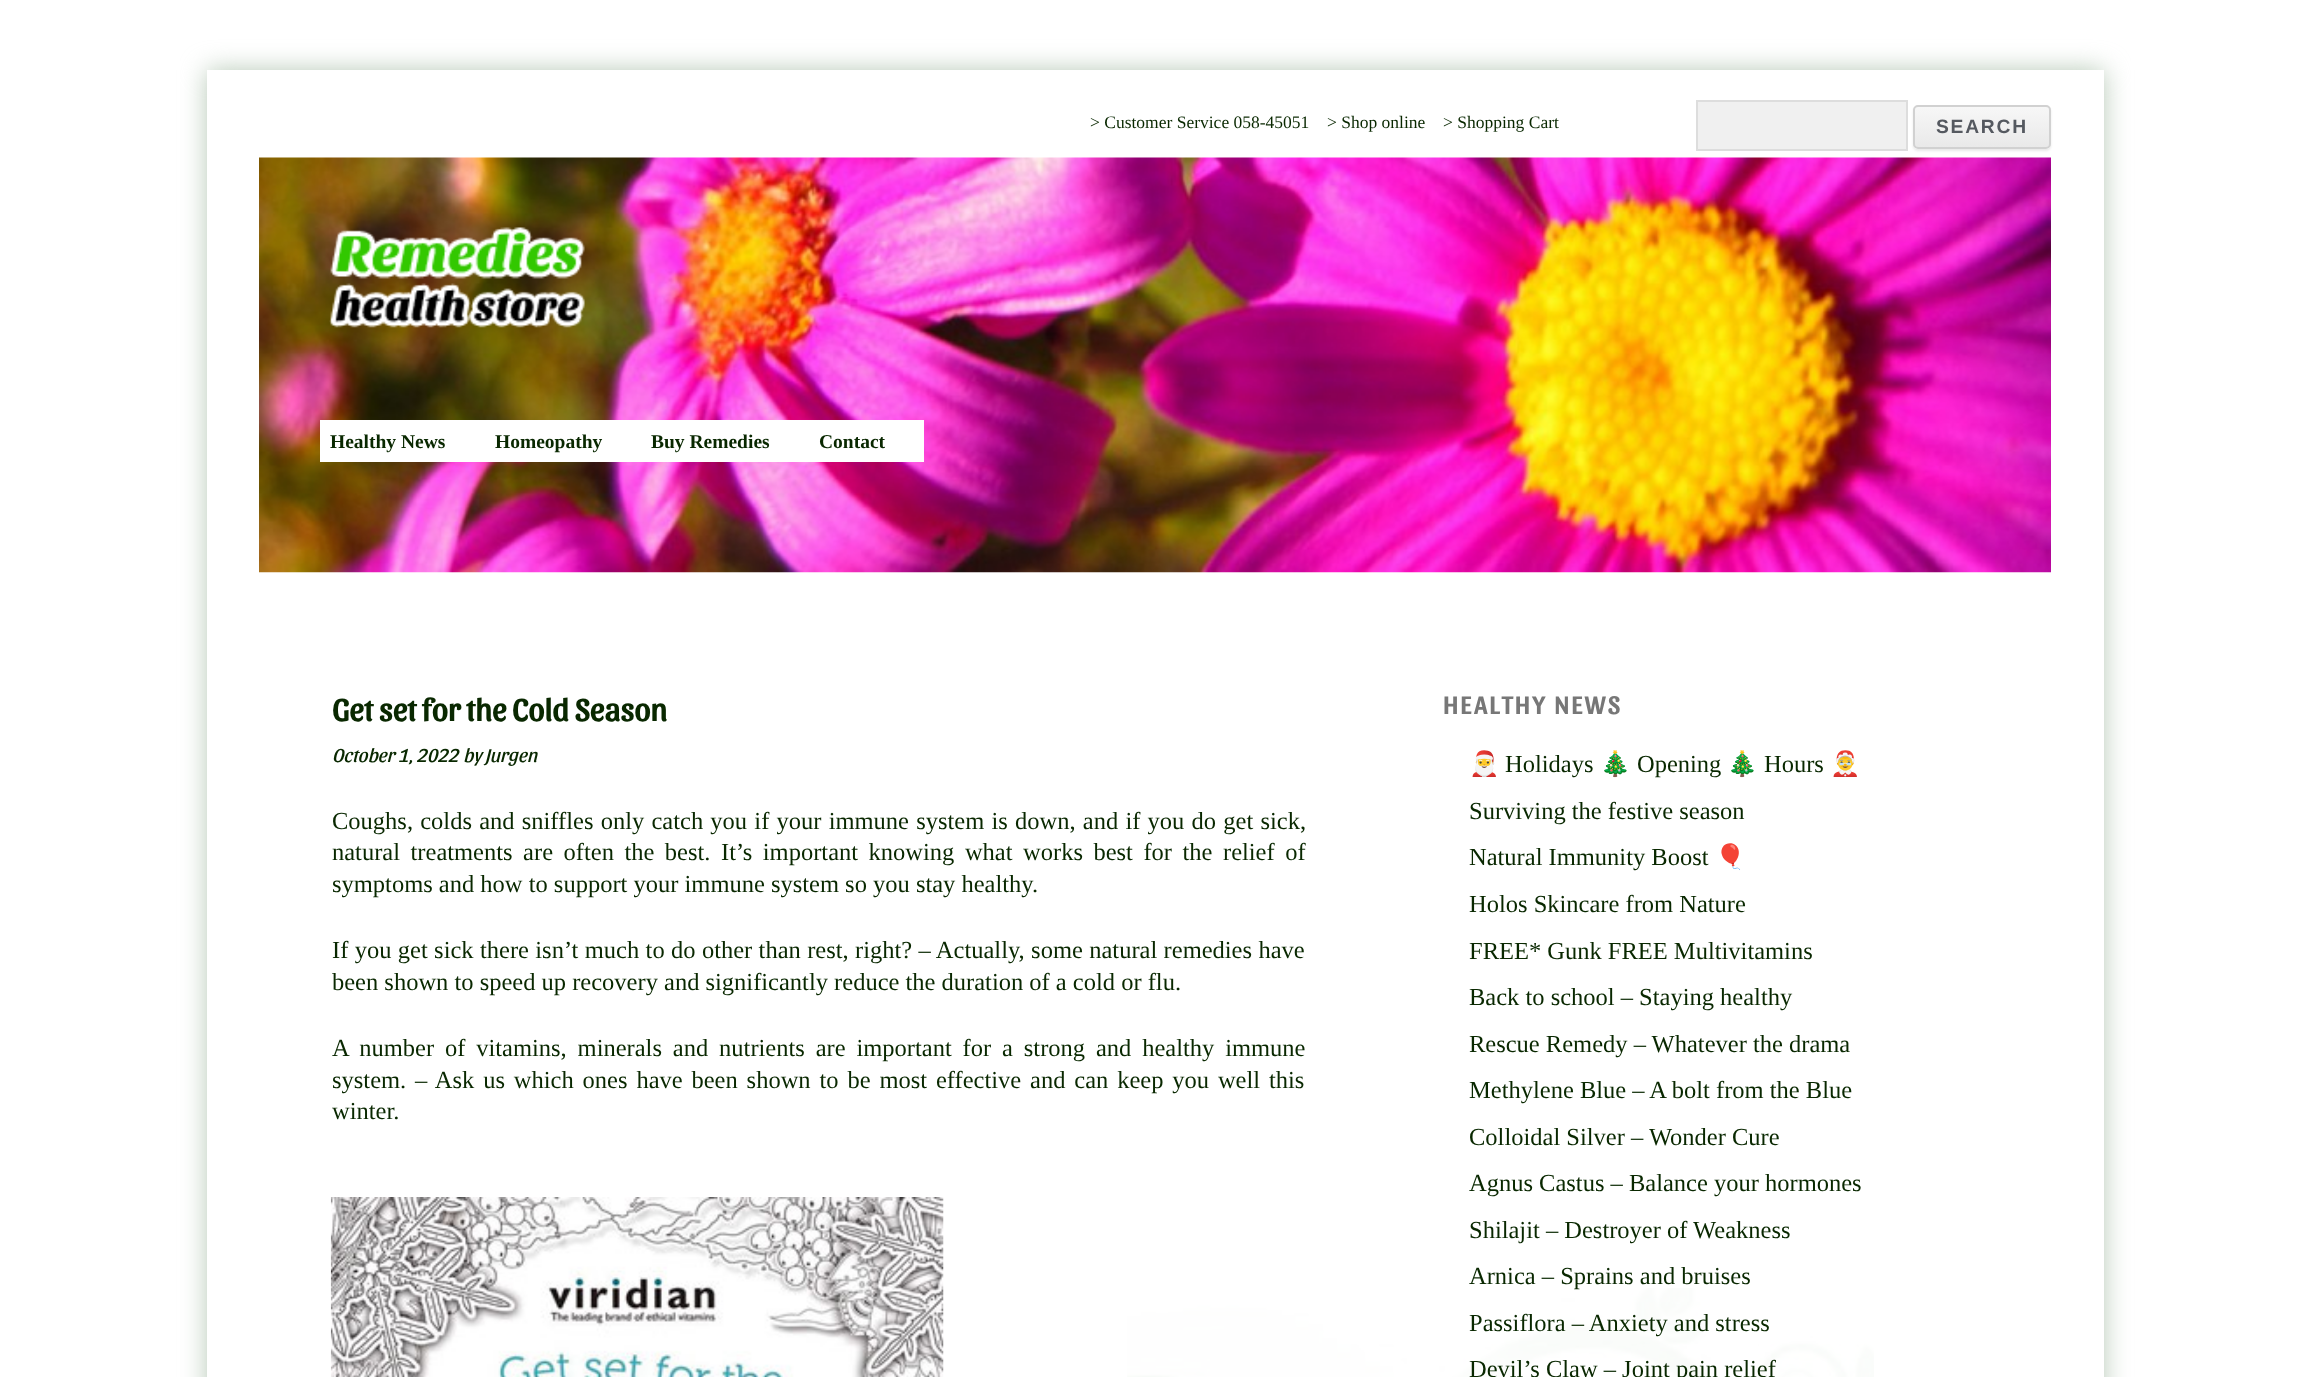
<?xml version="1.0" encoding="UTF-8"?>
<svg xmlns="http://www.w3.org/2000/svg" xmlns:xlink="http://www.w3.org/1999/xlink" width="2307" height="1377">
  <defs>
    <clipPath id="clip1"><path d="M 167 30 h 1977 v 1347 h -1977 z m 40 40 h 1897 v 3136 h -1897 z" clip-rule="evenodd" /></clipPath>
    <clipPath id="clip2"><path d="M 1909 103 h 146 v 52 h -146 z m 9 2 h 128 c 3 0 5 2 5 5 v 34 c 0 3 -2 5 -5 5 h -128 c -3 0 -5 -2 -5 -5 v -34 c 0 -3 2 -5 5 -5 z" clip-rule="evenodd" /></clipPath>
    <clipPath id="clip3"><rect x="1913" y="105" width="138" height="44" rx="5" /></clipPath>
    <linearGradient id="g1" gradientUnits="userSpaceOnUse" x1="1982" y1="107" x2="1982" y2="147"><stop offset="0" stop-color="#f7f7f7" /><stop offset="1" stop-color="#e9e9e9" /></linearGradient>
  </defs>
  <rect width="100%" height="100%" fill="#ffffff" />
  <image x="1127" y="1288" width="747" height="89" xlink:href="image4.png" />
  <g clip-path="url(#clip1)">
    <rect x="207" y="70" width="1897" height="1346" fill="#b6c9b6" filter="blur(13px)" />
  </g>
  <rect x="1697" y="101" width="210" height="49" fill="#f0f0f0" stroke="#dddddd" stroke-width="2" />
  <g clip-path="url(#clip2)">
    <rect x="1913" y="107" width="138" height="44" rx="5" fill="#e9e9e9" filter="blur(1px)" />
  </g>
  <g clip-path="url(#clip3)">
    <rect x="1913" y="107" width="138" height="40" fill="url(#g1)" />
  </g>
  <rect x="1914" y="106" width="136" height="42" rx="4" fill="none" stroke="#d1d1d1" stroke-width="2" />
  <image x="259" y="157" width="1792" height="416" xlink:href="image1.png" />
  <image x="329" y="227" width="256" height="101" xlink:href="image2.png" />
  <rect x="320" y="420" width="604" height="42" fill="#ffffff" />
  <image x="330" y="1197" width="614" height="180" xlink:href="image3.png" />
  <text x="1090" y="128" style="font-family: Liberation Serif; font-size: 17.5px; fill: #092800">&gt; Customer Service 058-45051</text>
  <text x="1327" y="128" style="font-family: Liberation Serif; font-size: 17.5px; fill: #092800">&gt; Shop online</text>
  <text x="1443" y="128" style="font-family: Liberation Serif; font-size: 17.5px; fill: #092800">&gt; Shopping Cart</text>
  <text x="1936" y="133" style="font-family: Liberation Sans; font-size: 19.25px; font-weight: bold; letter-spacing: 1.75px; fill: #555960">SEARCH</text>
  <text x="330" y="448" style="font-family: Liberation Serif; font-size: 19.5px; font-weight: bold; fill: #092800">Healthy News</text>
  <text x="495" y="448" style="font-family: Liberation Serif; font-size: 19.5px; font-weight: bold; fill: #092800">Homeopathy</text>
  <text x="651" y="448" style="font-family: Liberation Serif; font-size: 19.5px; font-weight: bold; fill: #092800">Buy Remedies</text>
  <text x="819" y="448" style="font-family: Liberation Serif; font-size: 19.5px; font-weight: bold; fill: #092800">Contact</text>
  <text x="332" y="721" style="font-family: Sansita; font-size: 31.8px; font-weight: bold; fill: #092800">Get set for the Cold Season</text>
  <text x="332" y="762" style="font-family: Sansita; font-size: 19.5px; font-style: italic; fill: #092800">October 1, 2022</text>
  <text x="463" y="762" style="font-family: Sansita; font-size: 19.5px; font-style: italic; fill: #092800">by Jurgen</text>
  <text x="332" y="829" word-spacing="1.1" style="font-family: Liberation Serif; font-size: 24.5px; fill: #092800">Coughs, colds and sniffles only catch you if your immune system is down, and if you do get sick,</text>
  <text x="332" y="860" word-spacing="4.4" style="font-family: Liberation Serif; font-size: 24.5px; fill: #092800">natural treatments are often the best. It’s important knowing what works best for the relief of</text>
  <text x="332" y="892" style="font-family: Liberation Serif; font-size: 24.5px; fill: #092800">symptoms and how to support your immune system so you stay healthy.</text>
  <text x="332" y="958" word-spacing="0.25" style="font-family: Liberation Serif; font-size: 24.5px; fill: #092800">If you get sick there isn’t much to do other than rest, right? – Actually, some natural remedies have</text>
  <text x="332" y="990" style="font-family: Liberation Serif; font-size: 24.5px; fill: #092800">been shown to speed up recovery and significantly reduce the duration of a cold or flu.</text>
  <text x="332" y="1056" word-spacing="4.75" style="font-family: Liberation Serif; font-size: 24.5px; fill: #092800">A number of vitamins, minerals and nutrients are important for a strong and healthy immune</text>
  <text x="332" y="1088" word-spacing="2.75" style="font-family: Liberation Serif; font-size: 24.5px; fill: #092800">system. – Ask us which ones have been shown to be most effective and can keep you well this</text>
  <text x="332" y="1119" style="font-family: Liberation Serif; font-size: 24.5px; fill: #092800">winter.</text>
  <text x="1443" y="714" style="font-family: Sansita; font-size: 25.5px; font-weight: bold; letter-spacing: 2.5px; fill: #777777">HEALTHY NEWS</text>
  <text x="1469" y="772" style="font-family: Noto Color Emoji; font-size: 24.5px; fill: #092800">🎅</text>
  <text x="1505" y="772" style="font-family: Liberation Serif; font-size: 24.5px; fill: #092800">Holidays</text>
  <text x="1600" y="772" style="font-family: Noto Color Emoji; font-size: 24.5px; fill: #092800">🎄</text>
  <text x="1637" y="772" style="font-family: Liberation Serif; font-size: 24.5px; fill: #092800">Opening</text>
  <text x="1727" y="772" style="font-family: Noto Color Emoji; font-size: 24.5px; fill: #092800">🎄</text>
  <text x="1764" y="772" style="font-family: Liberation Serif; font-size: 24.5px; fill: #092800">Hours</text>
  <text x="1830" y="772" style="font-family: Noto Color Emoji; font-size: 24.5px; fill: #092800">🤶</text>
  <text x="1469" y="819" style="font-family: Liberation Serif; font-size: 24.5px; fill: #092800">Surviving the festive season</text>
  <text x="1469" y="865" style="font-family: Liberation Serif; font-size: 24.5px; fill: #092800">Natural Immunity Boost</text>
  <text x="1715" y="865" style="font-family: Noto Color Emoji; font-size: 24.5px; fill: #092800">🎈</text>
  <text x="1469" y="912" style="font-family: Liberation Serif; font-size: 24.5px; fill: #092800">Holos Skincare from Nature</text>
  <text x="1469" y="959" style="font-family: Liberation Serif; font-size: 24.5px; fill: #092800">FREE* Gunk FREE Multivitamins</text>
  <text x="1469" y="1005" style="font-family: Liberation Serif; font-size: 24.5px; fill: #092800">Back to school – Staying healthy</text>
  <text x="1469" y="1052" style="font-family: Liberation Serif; font-size: 24.5px; fill: #092800">Rescue Remedy – Whatever the drama</text>
  <text x="1469" y="1098" style="font-family: Liberation Serif; font-size: 24.5px; fill: #092800">Methylene Blue – A bolt from the Blue</text>
  <text x="1469" y="1145" style="font-family: Liberation Serif; font-size: 24.5px; fill: #092800">Colloidal Silver – Wonder Cure</text>
  <text x="1469" y="1191" style="font-family: Liberation Serif; font-size: 24.5px; fill: #092800">Agnus Castus – Balance your hormones</text>
  <text x="1469" y="1238" style="font-family: Liberation Serif; font-size: 24.5px; fill: #092800">Shilajit – Destroyer of Weakness</text>
  <text x="1469" y="1284" style="font-family: Liberation Serif; font-size: 24.5px; fill: #092800">Arnica – Sprains and bruises</text>
  <text x="1469" y="1331" style="font-family: Liberation Serif; font-size: 24.5px; fill: #092800">Passiflora – Anxiety and stress</text>
  <text x="1469" y="1377" style="font-family: Liberation Serif; font-size: 24.5px; fill: #092800">Devil’s Claw – Joint pain relief</text>
</svg>
